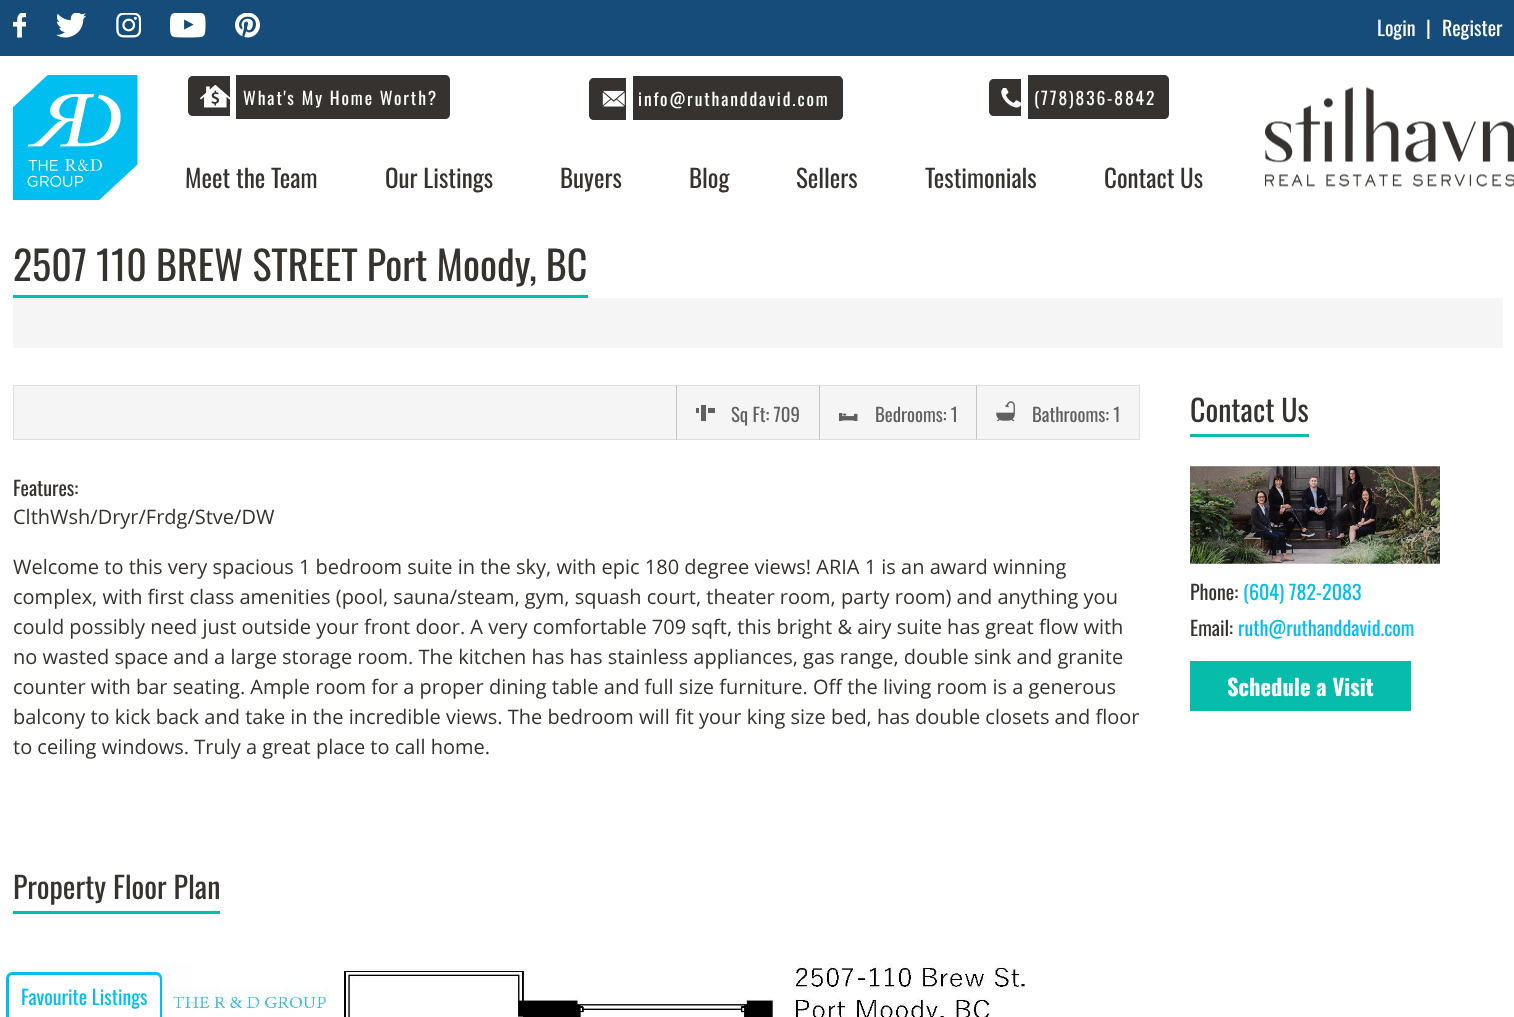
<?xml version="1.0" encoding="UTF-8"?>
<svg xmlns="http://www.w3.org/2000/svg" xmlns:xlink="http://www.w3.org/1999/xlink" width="1514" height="1017">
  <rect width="100%" height="100%" fill="#ffffff" />
  <rect width="1514" height="56" fill="#154c79" />
  <image x="13" y="13" width="13" height="25" xlink:href="image1.png" />
  <image x="56" y="13" width="30" height="25" xlink:href="image2.png" />
  <image x="116" y="13" width="25" height="25" xlink:href="image3.png" />
  <image x="170" y="13" width="36" height="25" xlink:href="image4.png" />
  <image x="235" y="13" width="25" height="25" xlink:href="image5.png" />
  <image x="13" y="75" width="125" height="125" xlink:href="image6.png" />
  <path d="M 193 76 h 37 v 40 h -37 c -3 0 -5 -2 -5 -5 v -30 c 0 -3 2 -5 5 -5 z" fill="#36322f" />
  <rect x="236" y="75" width="7" height="44" fill="#36322f" />
  <path d="M 243 75 h 202 c 3 0 5 2 5 5 v 34 c 0 3 -2 5 -5 5 h -202 z" fill="#36322f" />
  <image x="200" y="85" width="30" height="23" xlink:href="image7.png" />
  <path d="M 594 78 h 32 v 42 h -32 c -3 0 -5 -2 -5 -5 v -32 c 0 -3 2 -5 5 -5 z" fill="#36322f" />
  <rect x="633" y="76" width="5" height="44" fill="#36322f" />
  <path d="M 638 76 h 200 c 3 0 5 2 5 5 v 34 c 0 3 -2 5 -5 5 h -200 z" fill="#36322f" />
  <image x="602" y="90" width="23" height="17" xlink:href="image8.png" />
  <path d="M 994 79 h 27 v 37 h -27 c -3 0 -5 -2 -5 -5 v -27 c 0 -3 2 -5 5 -5 z" fill="#36322f" />
  <rect x="1028" y="75" width="6" height="44" fill="#36322f" />
  <path d="M 1034 75 h 130 c 3 0 5 2 5 5 v 34 c 0 3 -2 5 -5 5 h -130 z" fill="#36322f" />
  <image x="1001" y="88" width="20" height="20" xlink:href="image9.png" />
  <image x="1265" y="87" width="249" height="100" xlink:href="image10.png" />
  <rect x="13" y="295" width="575" height="3" fill="#07bcab" />
  <rect x="13" y="298" width="1490" height="50" fill="#f5f5f5" />
  <rect x="13.5" y="385.5" width="1126" height="54" fill="#f5f5f5" stroke="#dddddd" />
  <rect x="676" y="386" width="1" height="53" fill="#c4c4c4" />
  <rect x="701" y="405" width="5" height="16" fill="#606060" />
  <rect x="696" y="408" width="3" height="5" fill="#606060" />
  <rect x="708" y="408" width="7" height="5" fill="#606060" />
  <rect x="819" y="386" width="1" height="53" fill="#c4c4c4" />
  <image x="839" y="413" width="19" height="8" xlink:href="image11.png" />
  <rect x="976" y="386" width="1" height="53" fill="#c4c4c4" />
  <image x="996" y="401" width="19" height="20" xlink:href="image12.png" />
  <rect x="13" y="911" width="207" height="3" fill="#07bcab" />
  <image x="32" y="963" width="993" height="54" xlink:href="image13.png" />
  <rect x="1190" y="434" width="119" height="3" fill="#07bcab" />
  <image x="1190" y="466" width="250" height="98" xlink:href="image14.png" />
  <rect x="1190" y="661" width="221" height="50" fill="#07bcab" />
  <path d="M 12 973 h 145 c 3.5 0 6 2.5 6 6 v 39 h -157 v -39 c 0 -3.5 2.5 -6 6 -6 z" fill="#ffffff" />
  <path d="M 12 972 h 144 c 4 0 6 3 6 7 v 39 h -156 v -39 c 0 -4 3 -7 6 -7 z m 0 3 h 144 c 2 0 4 2 4 4 v 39 h -151 v -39 c 0 -2 1 -4 3 -4 z" fill="#00bef0" fill-rule="evenodd" />
  <text x="1377" y="36" style="font-family: Oswald; font-size: 20px; fill: #ffffff">Login</text>
  <text x="1426" y="36" style="font-family: Oswald; font-size: 20px; fill: #ffffff">|</text>
  <text x="1442" y="36" style="font-family: Oswald; font-size: 20px; fill: #ffffff">Register</text>
  <text x="243" y="105" style="font-family: Oswald; font-size: 17.5px; letter-spacing: 1.9px; fill: #ffffff">What's My Home Worth?</text>
  <text x="638" y="106" style="font-family: Oswald; font-size: 17.5px; letter-spacing: 1.9px; fill: #ffffff">info@ruthanddavid.com</text>
  <text x="1034" y="105" style="font-family: Oswald; font-size: 17.5px; letter-spacing: 1.9px; fill: #ffffff">(778)836-8842</text>
  <text x="185" y="188" style="font-family: Oswald; font-size: 25px; fill: #36322e">Meet the Team</text>
  <text x="385" y="188" style="font-family: Oswald; font-size: 25px; fill: #36322e">Our Listings</text>
  <text x="560" y="188" style="font-family: Oswald; font-size: 25px; fill: #36322e">Buyers</text>
  <text x="689" y="188" style="font-family: Oswald; font-size: 25px; fill: #36322e">Blog</text>
  <text x="796" y="188" style="font-family: Oswald; font-size: 25px; fill: #36322e">Sellers</text>
  <text x="925" y="188" style="font-family: Oswald; font-size: 25px; fill: #36322e">Testimonials</text>
  <text x="1104" y="188" style="font-family: Oswald; font-size: 25px; fill: #36322e">Contact Us</text>
  <text x="13" y="281" style="font-family: Oswald; font-size: 40px; fill: #36322e">2507 110 BREW STREET Port Moody, BC</text>
  <text x="731" y="422" style="font-family: Oswald; font-size: 18.75px; fill: #606060">Sq Ft: 709</text>
  <text x="875" y="422" style="font-family: Oswald; font-size: 18.75px; fill: #606060">Bedrooms: 1</text>
  <text x="1032" y="422" style="font-family: Oswald; font-size: 18.75px; fill: #606060">Bathrooms: 1</text>
  <text x="13" y="496" style="font-family: Oswald; font-size: 20px; fill: #36322e">Features:</text>
  <text x="13" y="524" style="font-family: Open Sans; font-size: 20px; fill: #36322e">ClthWsh/Dryr/Frdg/Stve/DW</text>
  <text x="13" y="574" style="font-family: Open Sans; font-size: 20px; fill: #36322e">Welcome to this very spacious 1 bedroom suite in the sky, with epic 180 degree views! ARIA 1 is an award winning</text>
  <text x="13" y="604" style="font-family: Open Sans; font-size: 20px; fill: #36322e">complex, with first class amenities (pool, sauna/steam, gym, squash court, theater room, party room) and anything you</text>
  <text x="13" y="634" style="font-family: Open Sans; font-size: 20px; fill: #36322e">could possibly need just outside your front door. A very comfortable 709 sqft, this bright &amp; airy suite has great flow with</text>
  <text x="13" y="664" style="font-family: Open Sans; font-size: 20px; fill: #36322e">no wasted space and a large storage room. The kitchen has has stainless appliances, gas range, double sink and granite</text>
  <text x="13" y="694" style="font-family: Open Sans; font-size: 20px; fill: #36322e">counter with bar seating. Ample room for a proper dining table and full size furniture. Off the living room is a generous</text>
  <text x="13" y="724" style="font-family: Open Sans; font-size: 20px; fill: #36322e">balcony to kick back and take in the incredible views. The bedroom will fit your king size bed, has double closets and floor</text>
  <text x="13" y="754" style="font-family: Open Sans; font-size: 20px; fill: #36322e">to ceiling windows. Truly a great place to call home.</text>
  <text x="13" y="899" style="font-family: Oswald; font-size: 30px; fill: #36322e">Property Floor Plan</text>
  <text x="1190" y="422" style="font-family: Oswald; font-size: 30px; fill: #36322e">Contact Us</text>
  <text x="1190" y="600" style="font-family: Oswald; font-size: 20px; fill: #36322e">Phone:</text>
  <text x="1243" y="600" style="font-family: Oswald; font-size: 20px; fill: #00bef0">(604) 782-2083</text>
  <text x="1190" y="636" style="font-family: Oswald; font-size: 20px; fill: #36322e">Email:</text>
  <text x="1238" y="636" style="font-family: Oswald; font-size: 20px; fill: #00bef0">ruth@ruthanddavid.com</text>
  <text x="1227" y="696" style="font-family: Oswald; font-size: 22.5px; font-weight: bold; fill: #ffffff">Schedule a Visit</text>
  <text x="21" y="1005" style="font-family: Oswald; font-size: 20px; fill: #00bef0">Favourite Listings</text>
</svg>
